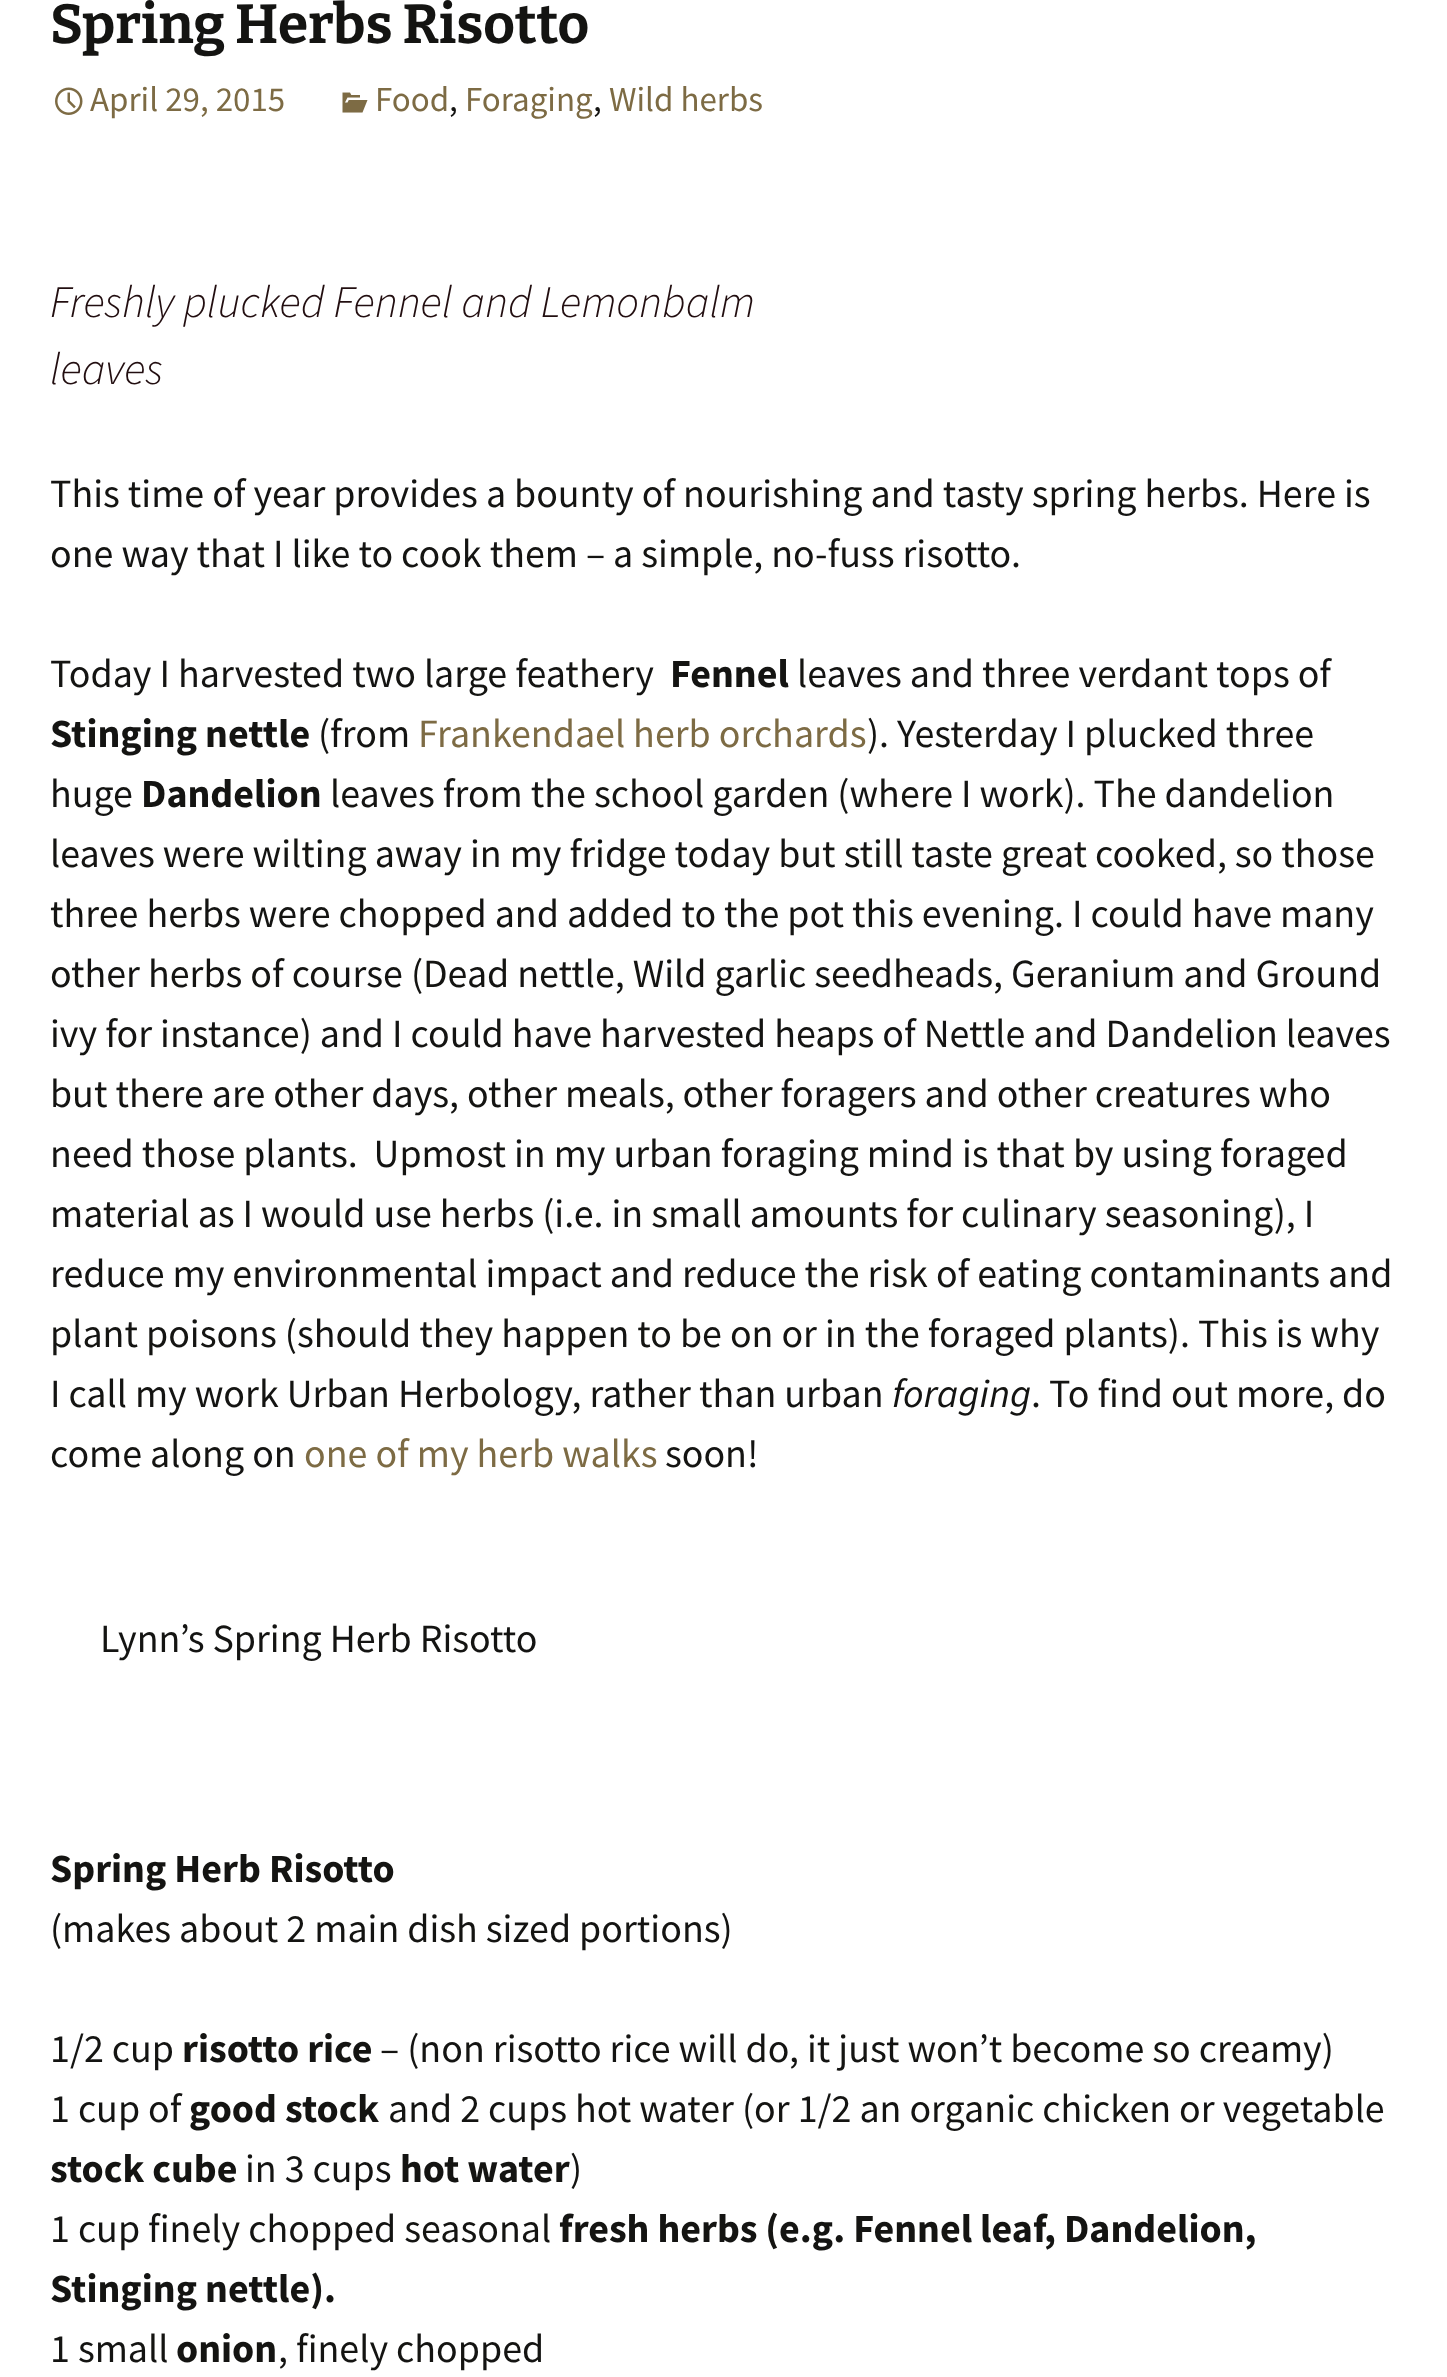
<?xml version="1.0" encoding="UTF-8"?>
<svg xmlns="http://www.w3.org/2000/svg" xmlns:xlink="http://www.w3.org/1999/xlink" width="1447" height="2377">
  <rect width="100%" height="100%" fill="#ffffff" />
  <image x="55" y="87" width="28" height="28" xlink:href="image1.png" />
  <image x="342" y="92" width="26" height="21" xlink:href="image2.png" />
  <text x="50" y="43" style="font-family: Bitter; font-size: 55px; font-weight: bold; fill: #141412">Spring Herbs Risotto</text>
  <text x="90" y="111" style="font-family: Source Sans Pro; font-size: 35px; fill: #7d6b44">April 29, 2015</text>
  <text x="375" y="111" style="font-family: Source Sans Pro; font-size: 35px; fill: #7d6b44">Food</text>
  <text x="449" y="111" style="font-family: Source Sans Pro; font-size: 35px; fill: #141412">,</text>
  <text x="465" y="111" style="font-family: Source Sans Pro; font-size: 35px; fill: #7d6b44">Foraging</text>
  <text x="593" y="111" style="font-family: Source Sans Pro; font-size: 35px; fill: #141412">,</text>
  <text x="609" y="111" style="font-family: Source Sans Pro; font-size: 35px; fill: #7d6b44">Wild herbs</text>
  <text x="50" y="317" style="font-family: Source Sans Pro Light; font-size: 45px; font-weight: 300; font-style: italic; fill: #220e10">Freshly plucked Fennel and Lemonbalm</text>
  <text x="50" y="384" style="font-family: Source Sans Pro Light; font-size: 45px; font-weight: 300; font-style: italic; fill: #220e10">leaves</text>
  <text x="50" y="507" style="font-family: Source Sans Pro; font-size: 40px; fill: #141412">This time of year provides a bounty of nourishing and tasty spring herbs. Here is</text>
  <text x="50" y="567" style="font-family: Source Sans Pro; font-size: 40px; fill: #141412">one way that I like to cook them – a simple, no-fuss risotto.</text>
  <text x="50" y="687" style="font-family: Source Sans Pro; font-size: 40px; fill: #141412">Today I harvested two large feathery</text>
  <text x="670" y="687" style="font-family: Source Sans Pro; font-size: 40px; font-weight: bold; fill: #141412">Fennel</text>
  <text x="797" y="687" style="font-family: Source Sans Pro; font-size: 40px; fill: #141412">leaves and three verdant tops of</text>
  <text x="50" y="747" style="font-family: Source Sans Pro; font-size: 40px; font-weight: bold; fill: #141412">Stinging nettle</text>
  <text x="318" y="747" style="font-family: Source Sans Pro; font-size: 40px; fill: #141412">(from</text>
  <text x="418" y="747" style="font-family: Source Sans Pro; font-size: 40px; fill: #7d6b44">Frankendael herb orchards</text>
  <text x="867" y="747" style="font-family: Source Sans Pro; font-size: 40px; fill: #141412">). Yesterday I plucked three</text>
  <text x="50" y="807" style="font-family: Source Sans Pro; font-size: 40px; fill: #141412">huge</text>
  <text x="141" y="807" style="font-family: Source Sans Pro; font-size: 40px; font-weight: bold; fill: #141412">Dandelion</text>
  <text x="330" y="807" style="font-family: Source Sans Pro; font-size: 40px; fill: #141412">leaves from the school garden (where I work). The dandelion</text>
  <text x="50" y="867" style="font-family: Source Sans Pro; font-size: 40px; fill: #141412">leaves were wilting away in my fridge today but still taste great cooked, so those</text>
  <text x="50" y="927" style="font-family: Source Sans Pro; font-size: 40px; fill: #141412">three herbs were chopped and added to the pot this evening. I could have many</text>
  <text x="50" y="987" style="font-family: Source Sans Pro; font-size: 40px; fill: #141412">other herbs of course (Dead nettle, Wild garlic seedheads, Geranium and Ground</text>
  <text x="50" y="1047" style="font-family: Source Sans Pro; font-size: 40px; fill: #141412">ivy for instance) and I could have harvested heaps of Nettle and Dandelion leaves</text>
  <text x="50" y="1107" style="font-family: Source Sans Pro; font-size: 40px; fill: #141412">but there are other days, other meals, other foragers and other creatures who</text>
  <text x="50" y="1167" style="font-family: Source Sans Pro; font-size: 40px; fill: #141412" xml:space="preserve">need those plants.  Upmost in my urban foraging mind is that by using foraged</text>
  <text x="50" y="1227" style="font-family: Source Sans Pro; font-size: 40px; fill: #141412">material as I would use herbs (i.e. in small amounts for culinary seasoning), I</text>
  <text x="50" y="1287" style="font-family: Source Sans Pro; font-size: 40px; fill: #141412">reduce my environmental impact and reduce the risk of eating contaminants and</text>
  <text x="50" y="1347" style="font-family: Source Sans Pro; font-size: 40px; fill: #141412">plant poisons (should they happen to be on or in the foraged plants). This is why</text>
  <text x="50" y="1407" style="font-family: Source Sans Pro; font-size: 40px; fill: #141412">I call my work Urban Herbology, rather than urban</text>
  <text x="892" y="1407" style="font-family: Source Sans Pro; font-size: 40px; font-style: italic; fill: #141412">foraging</text>
  <text x="1031" y="1407" style="font-family: Source Sans Pro; font-size: 40px; fill: #141412">. To find out more, do</text>
  <text x="50" y="1467" style="font-family: Source Sans Pro; font-size: 40px; fill: #141412">come along on</text>
  <text x="304" y="1467" style="font-family: Source Sans Pro; font-size: 40px; fill: #7d6b44">one of my herb walks</text>
  <text x="665" y="1467" style="font-family: Source Sans Pro; font-size: 40px; fill: #141412">soon!</text>
  <text x="100" y="1652" style="font-family: Source Sans Pro; font-size: 40px; fill: #141412">Lynn’s Spring Herb Risotto</text>
  <text x="50" y="1882" style="font-family: Source Sans Pro; font-size: 40px; font-weight: bold; fill: #141412">Spring Herb Risotto</text>
  <text x="50" y="1942" style="font-family: Source Sans Pro; font-size: 40px; fill: #141412">(makes about 2 main dish sized portions)</text>
  <text x="50" y="2062" style="font-family: Source Sans Pro; font-size: 40px; fill: #141412">1/2 cup</text>
  <text x="182" y="2062" style="font-family: Source Sans Pro; font-size: 40px; font-weight: bold; fill: #141412">risotto rice</text>
  <text x="380" y="2062" style="font-family: Source Sans Pro; font-size: 40px; fill: #141412">– (non risotto rice will do, it just won’t become so creamy)</text>
  <text x="50" y="2122" style="font-family: Source Sans Pro; font-size: 40px; fill: #141412">1 cup of</text>
  <text x="189" y="2122" style="font-family: Source Sans Pro; font-size: 40px; font-weight: bold; fill: #141412">good stock</text>
  <text x="388" y="2122" style="font-family: Source Sans Pro; font-size: 40px; fill: #141412">and 2 cups hot water (or 1/2 an organic chicken or vegetable</text>
  <text x="50" y="2182" style="font-family: Source Sans Pro; font-size: 40px; font-weight: bold; fill: #141412">stock cube</text>
  <text x="245" y="2182" style="font-family: Source Sans Pro; font-size: 40px; fill: #141412">in 3 cups</text>
  <text x="400" y="2182" style="font-family: Source Sans Pro; font-size: 40px; font-weight: bold; fill: #141412">hot water</text>
  <text x="570" y="2182" style="font-family: Source Sans Pro; font-size: 40px; fill: #141412">)</text>
  <text x="50" y="2242" style="font-family: Source Sans Pro; font-size: 40px; fill: #141412">1 cup finely chopped seasonal</text>
  <text x="559" y="2242" style="font-family: Source Sans Pro; font-size: 40px; font-weight: bold; fill: #141412">fresh herbs (e.g. Fennel leaf, Dandelion,</text>
  <text x="50" y="2302" style="font-family: Source Sans Pro; font-size: 40px; font-weight: bold; fill: #141412">Stinging nettle).</text>
  <text x="50" y="2362" style="font-family: Source Sans Pro; font-size: 40px; fill: #141412">1 small</text>
  <text x="176" y="2362" style="font-family: Source Sans Pro; font-size: 40px; font-weight: bold; fill: #141412">onion</text>
  <text x="278" y="2362" style="font-family: Source Sans Pro; font-size: 40px; fill: #141412">, finely chopped</text>
</svg>
